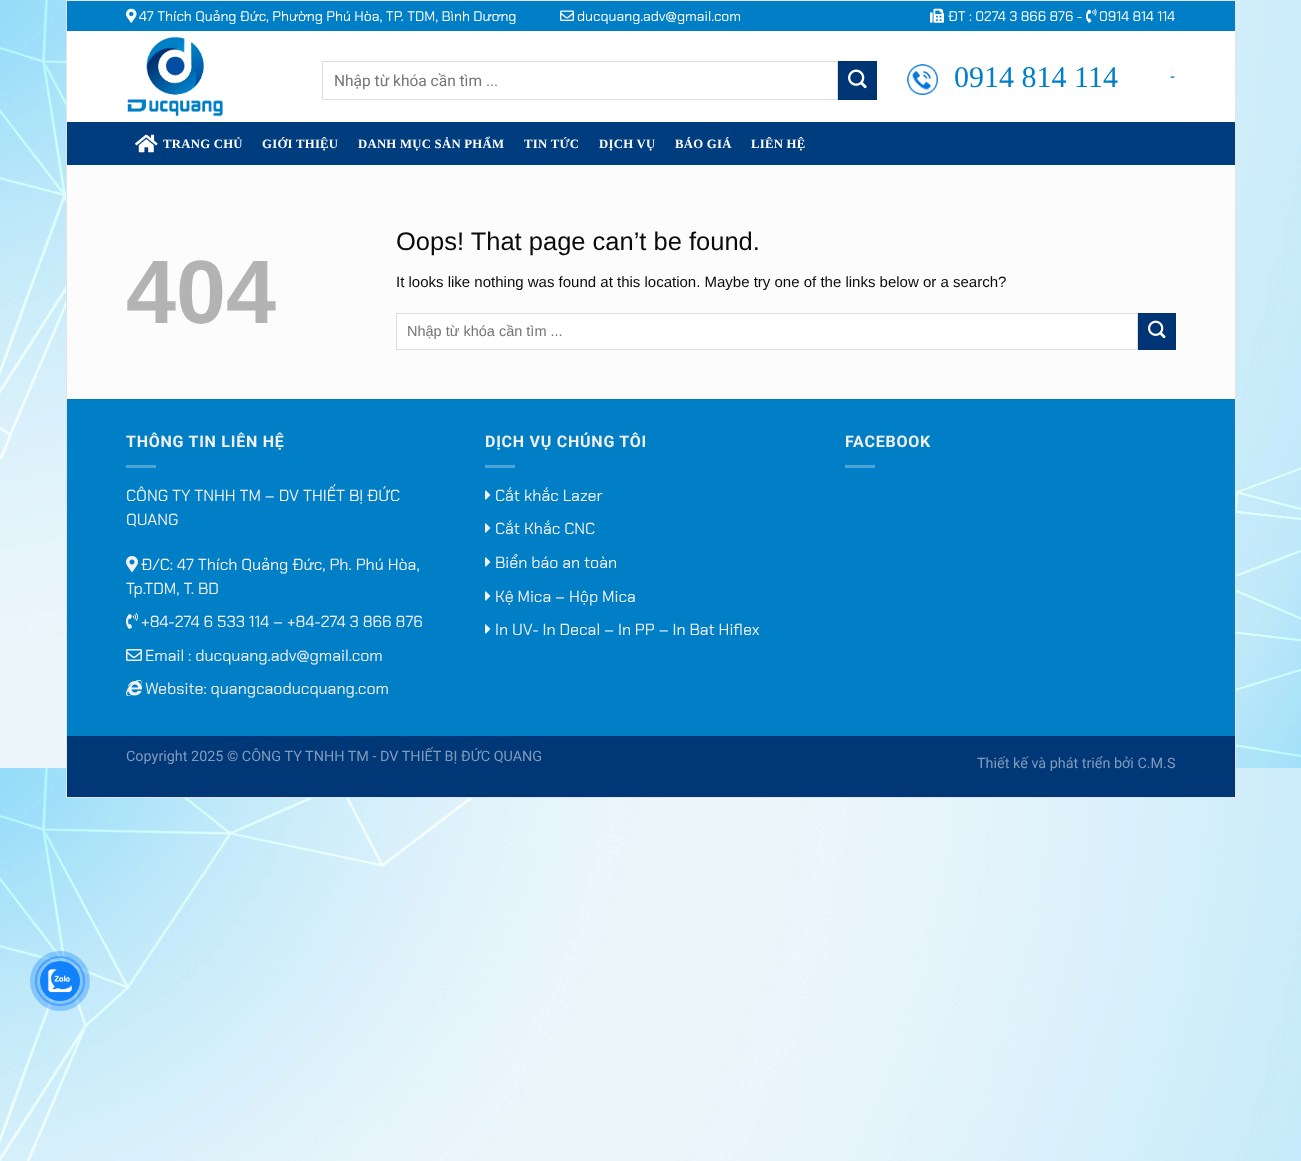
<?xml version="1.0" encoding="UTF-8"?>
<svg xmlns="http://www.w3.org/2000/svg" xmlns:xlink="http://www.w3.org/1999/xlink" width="1301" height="1161">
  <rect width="100%" height="100%" fill="#ffffff" />
  <image x="0" y="0" width="1301" height="1161" xlink:href="image1.png" />
  <rect x="66.5" y="0.5" width="1169" height="797" fill="none" stroke="#e3e3e3" />
  <rect x="67" y="165" width="1168" height="234" fill="#fcfcfc" />
  <rect x="67" y="31" width="1168" height="91" fill="#ffffff" />
  <rect x="67" y="1" width="1168" height="30" fill="#007ec6" />
  <image x="126" y="8" width="11" height="15" xlink:href="image2.png" />
  <image x="560" y="10" width="14" height="11" xlink:href="image3.png" />
  <image x="930" y="8" width="14" height="15" xlink:href="image4.png" />
  <image x="1086" y="8" width="11" height="15" xlink:href="image5.png" />
  <image x="127" y="36" width="96" height="81" xlink:href="image6.png" />
  <rect x="322.5" y="61.5" width="515" height="38" fill="none" stroke="#dddddd" />
  <rect x="838.5" y="61.5" width="38" height="38" fill="#003575" stroke="#00326f" />
  <image x="848" y="69" width="19" height="20" xlink:href="image7.png" />
  <image x="907" y="64" width="31" height="31" xlink:href="image8.png" />
  <rect x="67" y="122" width="1168" height="43" fill="#003d7e" />
  <rect x="126" y="122" width="1050" height="1" fill="#013872" />
  <image x="135" y="134" width="23" height="19" xlink:href="image9.png" />
  <rect x="396.5" y="313.5" width="741" height="36" fill="#ffffff" stroke="#dddddd" />
  <rect x="1138.5" y="313.5" width="37" height="36" fill="#003575" stroke="#00326f" />
  <image x="1148" y="320" width="18" height="19" xlink:href="image10.png" />
  <rect x="67" y="400" width="1168" height="336" fill="#007ec6" />
  <rect x="67" y="399" width="1168" height="1" fill="#0078bc" />
  <rect x="126" y="465" width="30" height="3" fill="#4da5d7" />
  <image x="126" y="556" width="12" height="16" xlink:href="image11.png" />
  <image x="126" y="613" width="12" height="16" xlink:href="image12.png" />
  <image x="126" y="649" width="16" height="12" xlink:href="image13.png" />
  <image x="126" y="680" width="16" height="16" xlink:href="image14.png" />
  <rect x="485" y="465" width="30" height="3" fill="#4da5d7" />
  <image x="485" y="490" width="6" height="10" xlink:href="image15.png" />
  <image x="485" y="523" width="6" height="10" xlink:href="image15.png" />
  <image x="485" y="557" width="6" height="10" xlink:href="image15.png" />
  <image x="485" y="591" width="6" height="10" xlink:href="image15.png" />
  <image x="485" y="624" width="6" height="10" xlink:href="image15.png" />
  <rect x="845" y="465" width="30" height="3" fill="#4da5d7" />
  <rect x="67" y="736" width="1168" height="61" fill="#003777" />
  <circle cx="60" cy="981" r="24" fill="none" stroke="#1182fc" stroke-opacity="0.5" stroke-width="2" />
  <circle cx="60" cy="981" r="30" fill="#1182fc" fill-opacity="0.34" />
  <circle cx="60" cy="981" r="20" fill="#1182fc" />
  <image x="47" y="969" width="25" height="24" xlink:href="image16.png" />
  <text x="139" y="21" style="font-family: Chakra Petch; font-size: 14px; fill: #ffffff">47 Thích Quảng Đức, Phường Phú Hòa, TP. TDM, Bình Dương</text>
  <text x="577" y="21" style="font-family: Chakra Petch; font-size: 14px; fill: #ffffff">ducquang.adv@gmail.com</text>
  <text x="948" y="21" style="font-family: Chakra Petch; font-size: 14px; fill: #ffffff">ĐT : 0274 3 866 876 -</text>
  <text x="1099" y="21" style="font-family: Chakra Petch; font-size: 14px; fill: #ffffff">0914 814 114</text>
  <text x="334" y="86" style="font-family: Roboto; font-size: 15.5px; fill: #757575">Nhập từ khóa cần tìm ...</text>
  <text x="954" y="87" style="font-family: Liberation Serif; font-size: 30px; fill: #007ec6">0914 814 114</text>
  <text x="1170" y="81" style="font-family: Roboto; font-size: 12.75px; font-weight: bold; letter-spacing: 0.25px; fill: #007ec6">-</text>
  <text x="163" y="148" style="font-family: Liberation Serif; font-size: 12.75px; font-weight: bold; letter-spacing: 0.25px; fill: #ffffff">TRANG CHỦ</text>
  <text x="262" y="148" style="font-family: Liberation Serif; font-size: 12.75px; font-weight: bold; letter-spacing: 0.25px; fill: #ffffff">GIỚI THIỆU</text>
  <text x="358" y="148" style="font-family: Liberation Serif; font-size: 12.75px; font-weight: bold; letter-spacing: 0.25px; fill: #ffffff">DANH MỤC SẢN PHẨM</text>
  <text x="524" y="148" style="font-family: Liberation Serif; font-size: 12.75px; font-weight: bold; letter-spacing: 0.25px; fill: #ffffff">TIN TỨC</text>
  <text x="599" y="148" style="font-family: Liberation Serif; font-size: 12.75px; font-weight: bold; letter-spacing: 0.25px; fill: #ffffff">DỊCH VỤ</text>
  <text x="675" y="148" style="font-family: Liberation Serif; font-size: 12.75px; font-weight: bold; letter-spacing: 0.25px; fill: #ffffff">BÁO GIÁ</text>
  <text x="751" y="148" style="font-family: Liberation Serif; font-size: 12.75px; font-weight: bold; letter-spacing: 0.25px; fill: #ffffff">LIÊN HỆ</text>
  <text x="126" y="323" style="font-family: Liberation Sans; font-size: 90px; font-weight: bold; fill: #b3b3b3">404</text>
  <text x="396" y="250" style="font-family: Liberation Sans; font-size: 25.5px; fill: #0a0a0a">Oops! That page can’t be found.</text>
  <text x="396" y="287" style="font-family: Liberation Sans; font-size: 15px; fill: #0a0a0a">It looks like nothing was found at this location. Maybe try one of the links below or a search?</text>
  <text x="407" y="336" style="font-family: Liberation Sans; font-size: 14.5px; fill: #757575">Nhập từ khóa cần tìm ...</text>
  <text x="126" y="447" style="font-family: Roboto; font-size: 16px; font-weight: bold; letter-spacing: 0.75px; fill: #f1f1f1">THÔNG TIN LIÊN HỆ</text>
  <text x="126" y="501" style="font-family: Chakra Petch; font-size: 16px; fill: #f1f1f1">CÔNG TY TNHH TM – DV THIẾT BỊ ĐỨC</text>
  <text x="126" y="525" style="font-family: Chakra Petch; font-size: 16px; fill: #f1f1f1">QUANG</text>
  <text x="141" y="570" style="font-family: Chakra Petch; font-size: 16px; fill: #f1f1f1">Đ/C: 47 Thích Quảng Đức, Ph. Phú Hòa,</text>
  <text x="126" y="594" style="font-family: Chakra Petch; font-size: 16px; fill: #f1f1f1">Tp.TDM, T. BD</text>
  <text x="141" y="627" style="font-family: Chakra Petch; font-size: 16px; fill: #f1f1f1">+84-274 6 533 114 – +84-274 3 866 876</text>
  <text x="145" y="661" style="font-family: Chakra Petch; font-size: 16px; fill: #f1f1f1">Email : ducquang.adv@gmail.com</text>
  <text x="145" y="694" style="font-family: Chakra Petch; font-size: 16px; fill: #f1f1f1">Website: quangcaoducquang.com</text>
  <text x="485" y="447" style="font-family: Roboto; font-size: 16px; font-weight: bold; letter-spacing: 0.75px; fill: #f1f1f1">DỊCH VỤ CHÚNG TÔI</text>
  <text x="495" y="501" style="font-family: Chakra Petch; font-size: 16px; fill: #f1f1f1">Cắt khắc Lazer</text>
  <text x="495" y="534" style="font-family: Chakra Petch; font-size: 16px; fill: #f1f1f1">Cắt Khắc CNC</text>
  <text x="495" y="568" style="font-family: Chakra Petch; font-size: 16px; fill: #f1f1f1">Biển báo an toàn</text>
  <text x="495" y="602" style="font-family: Chakra Petch; font-size: 16px; fill: #f1f1f1">Kệ Mica – Hộp Mica</text>
  <text x="495" y="635" style="font-family: Chakra Petch; font-size: 16px; fill: #f1f1f1">In UV- In Decal – In PP – In Bat Hiflex</text>
  <text x="845" y="447" style="font-family: Roboto; font-size: 16px; font-weight: bold; letter-spacing: 0.75px; fill: #f1f1f1">FACEBOOK</text>
  <text x="126" y="761" style="font-family: Roboto; font-size: 14.4px; fill: #809bbb">Copyright 2025 © CÔNG TY TNHH TM - DV THIẾT BỊ ĐỨC QUANG</text>
  <text x="977" y="768" style="font-family: Roboto; font-size: 14.4px; fill: #809bbb">Thiết kế và phát triển bởi C.M.S</text>
</svg>
